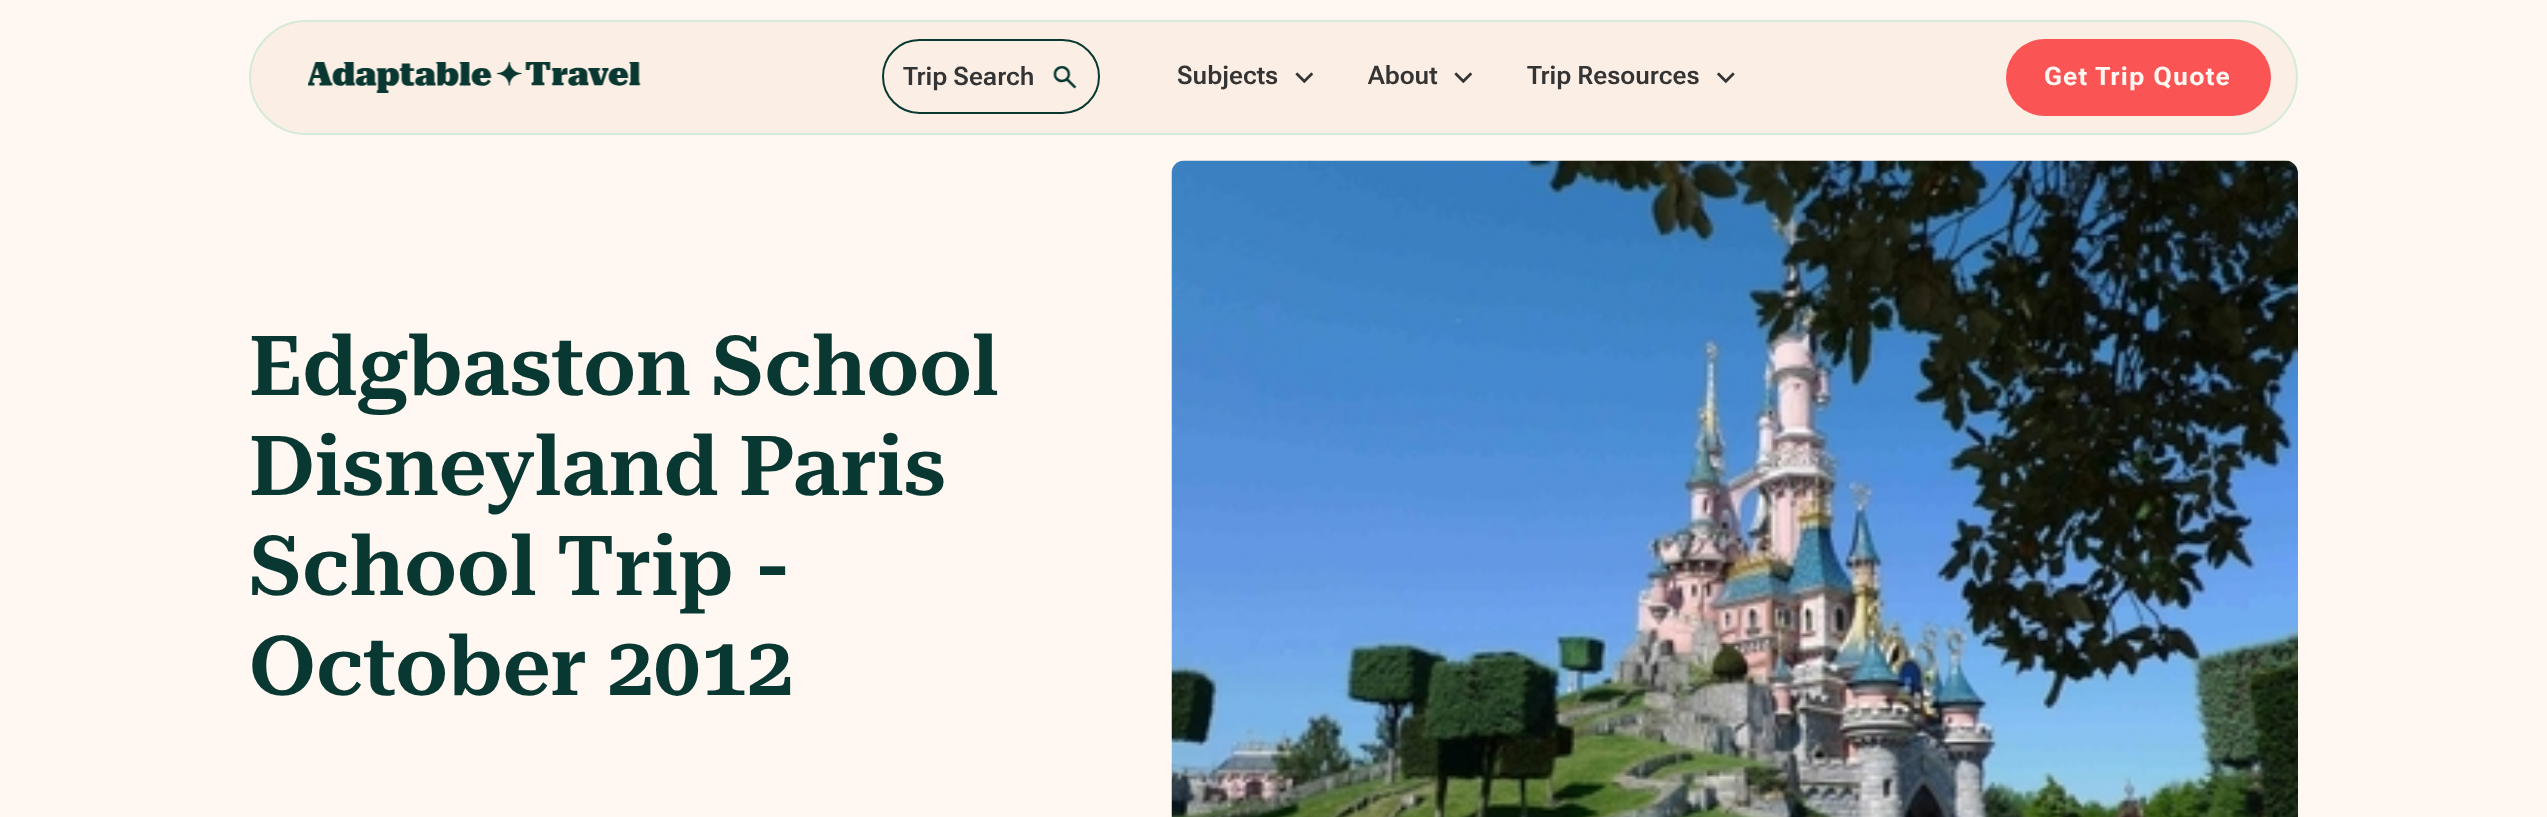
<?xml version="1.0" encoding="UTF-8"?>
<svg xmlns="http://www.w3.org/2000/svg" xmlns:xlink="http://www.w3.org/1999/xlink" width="2547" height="817">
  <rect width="100%" height="100%" fill="#fff7f1" />
  <rect x="250" y="21" width="2047" height="113" rx="56.5" fill="#fbeee4" stroke="#d5ead9" stroke-width="2" />
  <image x="308" y="62" width="333" height="31" xlink:href="image1.png" />
  <rect x="883" y="40" width="216" height="73" rx="36.5" fill="none" stroke="#083831" stroke-width="2" />
  <image x="1053" y="66" width="24" height="23" xlink:href="image2.png" />
  <image x="1295" y="72" width="19" height="12" xlink:href="image3.png" />
  <image x="1454" y="72" width="19" height="12" xlink:href="image3.png" />
  <image x="1717" y="72" width="18" height="12" xlink:href="image4.png" />
  <rect x="2006" y="39" width="265" height="77" rx="38.5" fill="#fa5455" />
  <image x="1171" y="160" width="1127" height="657" xlink:href="image5.png" />
  <text x="903" y="85" style="font-family: Roboto Flex; font-size: 25.5px; font-weight: 600; fill: #343434">Trip Search</text>
  <text x="1177" y="84" style="font-family: Roboto Flex; font-size: 25.5px; font-weight: 600; fill: #343434">Subjects</text>
  <text x="1368" y="84" style="font-family: Roboto Flex; font-size: 25.5px; font-weight: 600; fill: #343434">About</text>
  <text x="1527" y="84" style="font-family: Roboto Flex; font-size: 25.5px; font-weight: 600; fill: #343434">Trip Resources</text>
  <text x="2044" y="85" style="font-family: Roboto Flex; font-size: 25.5px; font-weight: bold; letter-spacing: 1.25px; fill: #fff7f1">Get Trip Quote</text>
  <text x="249" y="395" style="font-family: Roboto Serif; font-size: 83.25px; font-weight: 600; fill: #083831">Edgbaston School</text>
  <text x="249" y="495" style="font-family: Roboto Serif; font-size: 83.25px; font-weight: 600; fill: #083831">Disneyland Paris</text>
  <text x="249" y="595" style="font-family: Roboto Serif; font-size: 83.25px; font-weight: 600; fill: #083831">School Trip -</text>
  <text x="249" y="695" style="font-family: Roboto Serif; font-size: 83.25px; font-weight: 600; fill: #083831">October 2012</text>
</svg>
